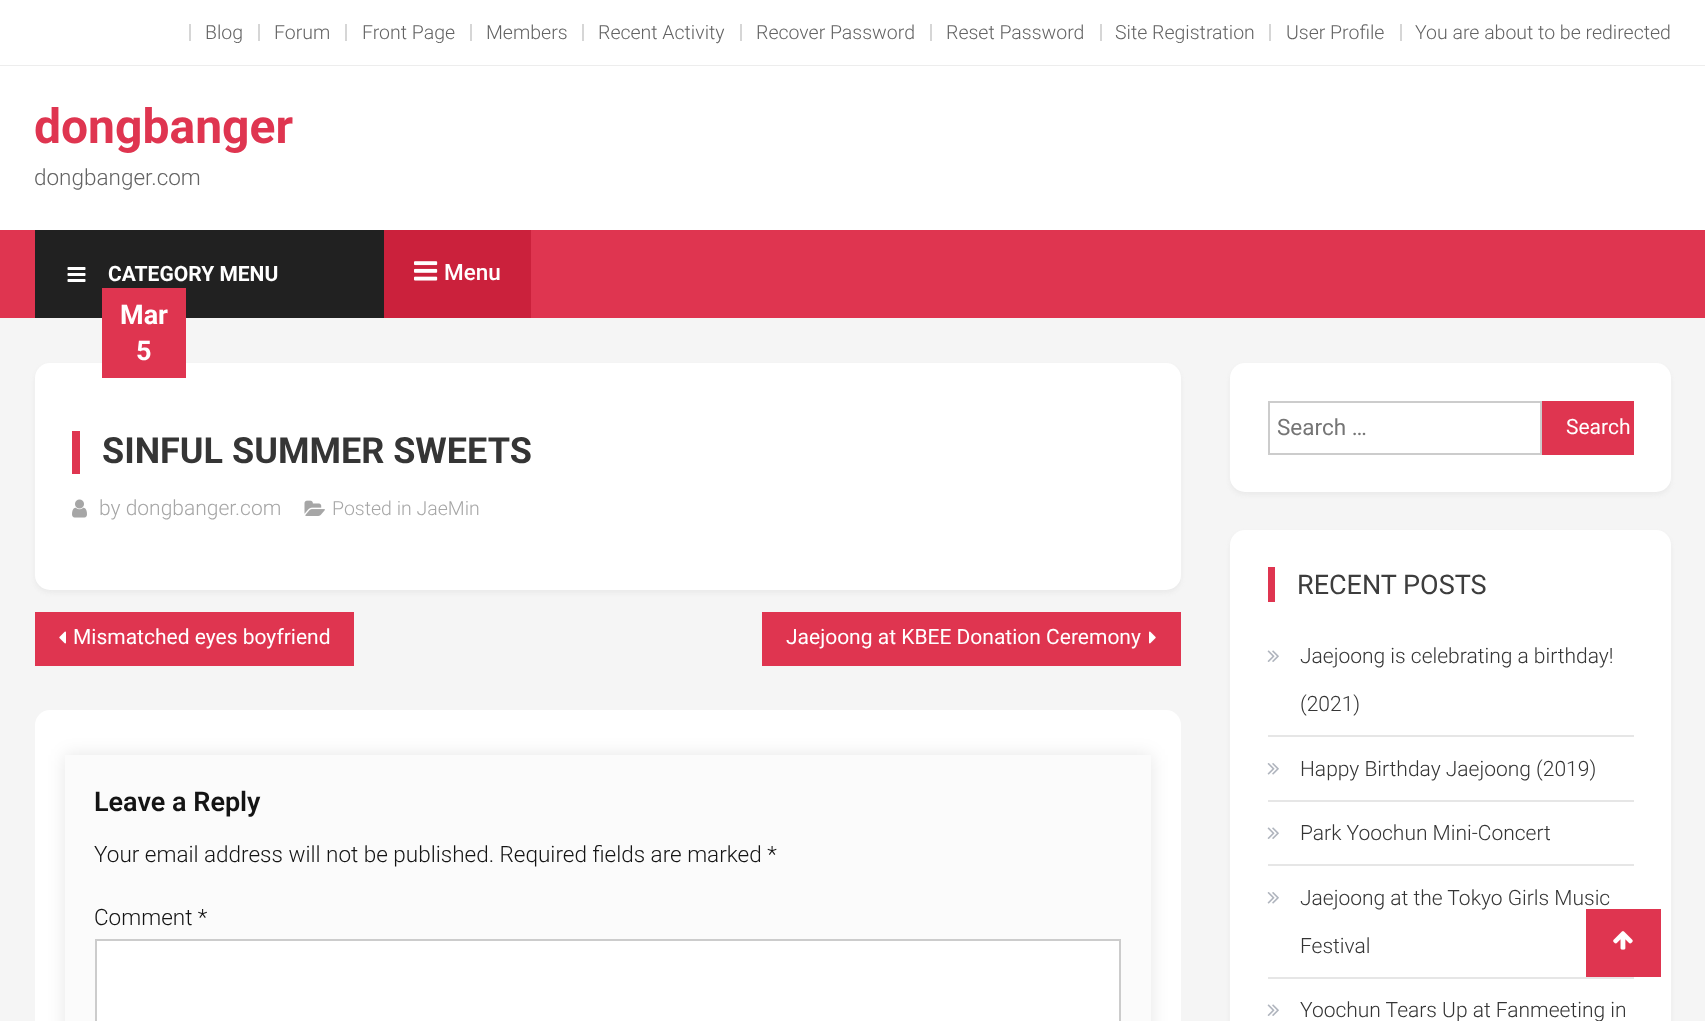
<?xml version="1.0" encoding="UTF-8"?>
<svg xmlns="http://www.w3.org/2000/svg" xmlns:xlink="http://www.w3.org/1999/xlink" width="1705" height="1021">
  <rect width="100%" height="100%" fill="#f5f5f5" />
  <rect width="1705" height="65" fill="#ffffff" />
  <rect y="65" width="1705" height="1" fill="#ededed" />
  <rect x="189" y="24" width="2" height="17" fill="#d6d6d6" />
  <rect x="258" y="24" width="2" height="17" fill="#d6d6d6" />
  <rect x="345" y="24" width="2" height="17" fill="#d6d6d6" />
  <rect x="470" y="24" width="2" height="17" fill="#d6d6d6" />
  <rect x="582" y="24" width="2" height="17" fill="#d6d6d6" />
  <rect x="740" y="24" width="2" height="17" fill="#d6d6d6" />
  <rect x="930" y="24" width="2" height="17" fill="#d6d6d6" />
  <rect x="1100" y="24" width="2" height="17" fill="#d6d6d6" />
  <rect x="1269" y="24" width="2" height="17" fill="#d6d6d6" />
  <rect x="1400" y="24" width="2" height="17" fill="#d6d6d6" />
  <rect y="66" width="1705" height="164" fill="#ffffff" />
  <rect y="230" width="1705" height="88" fill="#df3550" />
  <rect x="35" y="230" width="349" height="88" fill="#212121" />
  <image x="67" y="267" width="19" height="15" xlink:href="image1.png" />
  <rect x="384" y="230" width="147" height="88" fill="#cb213c" />
  <image x="414" y="261" width="24" height="20" xlink:href="image2.png" />
  <rect x="35" y="366" width="1146" height="227" rx="15" fill="#eaeaea" filter="blur(2px)" />
  <rect x="35" y="363" width="1146" height="227" rx="15" fill="#ffffff" />
  <rect x="102" y="288" width="84" height="90" fill="#df3550" />
  <rect x="72" y="431" width="8" height="43" fill="#df3550" />
  <image x="72" y="499" width="15" height="19" xlink:href="image3.png" />
  <image x="304" y="500" width="21" height="16" xlink:href="image4.png" />
  <rect x="35" y="612" width="319" height="54" fill="#df3550" />
  <image x="59" y="631" width="7" height="13" xlink:href="image5.png" />
  <rect x="762" y="612" width="419" height="54" fill="#df3550" />
  <image x="1149" y="631" width="7" height="13" xlink:href="image6.png" />
  <rect x="35" y="710" width="1146" height="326" rx="15" fill="#ffffff" />
  <rect x="65" y="755" width="1086" height="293" fill="#000000" fill-opacity="0.1" filter="blur(9px)" />
  <rect x="65" y="755" width="1086" height="266" fill="#fbfbfb" />
  <rect x="96" y="940" width="1024" height="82" fill="#ffffff" stroke="#cccccc" stroke-width="2" />
  <rect x="1230" y="366" width="441" height="129" rx="15" fill="#eaeaea" filter="blur(2px)" />
  <rect x="1230" y="363" width="441" height="129" rx="15" fill="#ffffff" />
  <rect x="1269" y="402" width="272" height="52" fill="none" stroke="#cccccc" stroke-width="2" />
  <rect x="1542" y="401" width="92" height="54" fill="#df3550" />
  <rect x="1230" y="533" width="441" height="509" rx="15" fill="#eaeaea" filter="blur(2px)" />
  <rect x="1230" y="530" width="441" height="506" rx="15" fill="#ffffff" />
  <rect x="1268" y="567" width="7" height="35" fill="#df3550" />
  <rect x="1268" y="735" width="366" height="2" fill="#e6e6e6" />
  <image x="1267" y="650" width="12" height="12" xlink:href="image7.png" />
  <rect x="1268" y="800" width="366" height="2" fill="#e6e6e6" />
  <image x="1267" y="763" width="12" height="12" xlink:href="image8.png" />
  <rect x="1268" y="864" width="366" height="2" fill="#e6e6e6" />
  <image x="1267" y="827" width="12" height="12" xlink:href="image7.png" />
  <rect x="1268" y="977" width="366" height="2" fill="#e6e6e6" />
  <image x="1267" y="892" width="12" height="12" xlink:href="image8.png" />
  <image x="1267" y="1004" width="12" height="12" xlink:href="image7.png" />
  <text x="205" y="39" style="font-family: Roboto; font-size: 19.5px; font-weight: 300; fill: #636363">Blog</text>
  <text x="274" y="39" style="font-family: Roboto; font-size: 19.5px; font-weight: 300; fill: #636363">Forum</text>
  <text x="362" y="39" style="font-family: Roboto; font-size: 19.5px; font-weight: 300; fill: #636363">Front Page</text>
  <text x="486" y="39" style="font-family: Roboto; font-size: 19.5px; font-weight: 300; fill: #636363">Members</text>
  <text x="598" y="39" style="font-family: Roboto; font-size: 19.5px; font-weight: 300; fill: #636363">Recent Activity</text>
  <text x="756" y="39" style="font-family: Roboto; font-size: 19.5px; font-weight: 300; fill: #636363">Recover Password</text>
  <text x="946" y="39" style="font-family: Roboto; font-size: 19.5px; font-weight: 300; fill: #636363">Reset Password</text>
  <text x="1115" y="39" style="font-family: Roboto; font-size: 19.5px; font-weight: 300; fill: #636363">Site Registration</text>
  <text x="1286" y="39" style="font-family: Roboto; font-size: 19.5px; font-weight: 300; fill: #636363">User Profile</text>
  <text x="1415" y="39" style="font-family: Roboto; font-size: 19.5px; font-weight: 300; fill: #636363">You are about to be redirected</text>
  <text x="34" y="143" style="font-family: Roboto; font-size: 48px; font-weight: bold; fill: #df3550">dongbanger</text>
  <text x="34" y="185" style="font-family: Roboto; font-size: 22.5px; font-weight: 300; fill: #636363">dongbanger.com</text>
  <text x="108" y="281" style="font-family: Roboto; font-size: 21px; font-weight: bold; fill: #ffffff">CATEGORY MENU</text>
  <text x="444" y="280" style="font-family: Roboto; font-size: 22.5px; font-weight: 500; fill: #ffffff">Menu</text>
  <text x="120" y="324" style="font-family: Roboto; font-size: 27px; font-weight: bold; fill: #ffffff">Mar</text>
  <text x="136" y="360" style="font-family: Roboto; font-size: 27px; font-weight: bold; fill: #ffffff">5</text>
  <text x="102" y="463" style="font-family: Roboto; font-size: 36px; font-weight: bold; fill: #353535">SINFUL SUMMER SWEETS</text>
  <text x="99" y="515" style="font-family: Roboto; font-size: 21px; font-weight: 300; fill: #a6a6a6">by dongbanger.com</text>
  <text x="332" y="515" style="font-family: Roboto; font-size: 19.5px; font-weight: 300; fill: #a6a6a6">Posted in JaeMin</text>
  <text x="73" y="644" style="font-family: Roboto; font-size: 21px; fill: #ffffff">Mismatched eyes boyfriend</text>
  <text x="786" y="644" style="font-family: Roboto; font-size: 21px; fill: #ffffff">Jaejoong at KBEE Donation Ceremony</text>
  <text x="94" y="811" style="font-family: Roboto; font-size: 27px; font-weight: 600; fill: #141414">Leave a Reply</text>
  <text x="94" y="862" style="font-family: Roboto; font-size: 22.5px; font-weight: 300; fill: #141414">Your email address will not be published. Required fields are marked *</text>
  <text x="94" y="925" style="font-family: Roboto; font-size: 22.5px; font-weight: 300; fill: #141414">Comment *</text>
  <text x="1277" y="435" style="font-family: Roboto; font-size: 22.5px; fill: #757575">Search …</text>
  <text x="1566" y="434" style="font-family: Roboto; font-size: 21px; fill: #ffffff">Search</text>
  <text x="1297" y="594" style="font-family: Roboto; font-size: 27px; fill: #3d3d3d">RECENT POSTS</text>
  <text x="1300" y="663" style="font-family: Roboto; font-size: 21px; font-weight: 300; fill: #353535">Jaejoong is celebrating a birthday!</text>
  <text x="1300" y="711" style="font-family: Roboto; font-size: 21px; font-weight: 300; fill: #353535">(2021)</text>
  <text x="1300" y="776" style="font-family: Roboto; font-size: 21px; font-weight: 300; fill: #353535">Happy Birthday Jaejoong (2019)</text>
  <text x="1300" y="840" style="font-family: Roboto; font-size: 21px; font-weight: 300; fill: #353535">Park Yoochun Mini-Concert</text>
  <text x="1300" y="905" style="font-family: Roboto; font-size: 21px; font-weight: 300; fill: #353535">Jaejoong at the Tokyo Girls Music</text>
  <text x="1300" y="953" style="font-family: Roboto; font-size: 21px; font-weight: 300; fill: #353535">Festival</text>
  <text x="1300" y="1017" style="font-family: Roboto; font-size: 21px; font-weight: 300; fill: #353535">Yoochun Tears Up at Fanmeeting in</text>
  <rect x="1586" y="909" width="75" height="68" fill="#df3550" />
  <image x="1613" y="931" width="20" height="19" xlink:href="image9.png" />
</svg>
